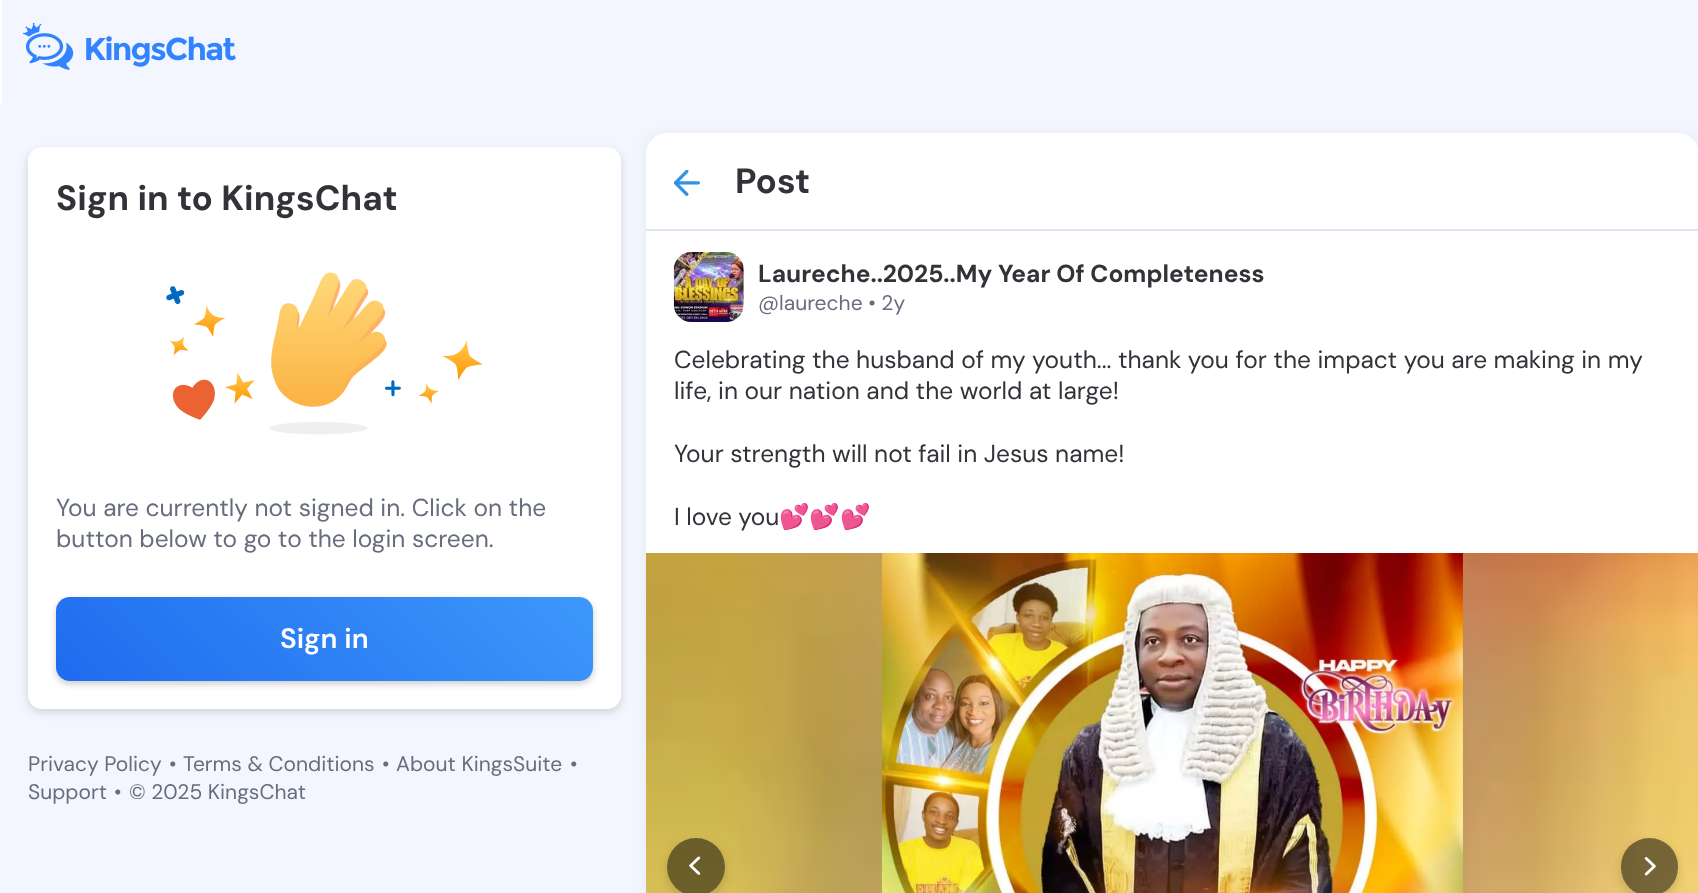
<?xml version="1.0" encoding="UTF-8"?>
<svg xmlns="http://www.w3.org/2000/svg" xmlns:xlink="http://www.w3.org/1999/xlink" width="1698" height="893">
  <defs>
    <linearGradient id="g1" gradientUnits="userSpaceOnUse" x1="236" y1="861" x2="681" y2="416"><stop offset="0" stop-color="#206bef" /><stop offset="1" stop-color="#49acff" /></linearGradient>
    <clipPath id="clip1"><path d="M 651 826 h 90 v 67 h -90 z m 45 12 c 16 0 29 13 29 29 c 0 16 -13 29 -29 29 c -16 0 -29 -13 -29 -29 c 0 -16 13 -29 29 -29 z" clip-rule="evenodd" /></clipPath>
    <clipPath id="clip2"><path d="M 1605 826 h 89 v 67 h -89 z m 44.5 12 c 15.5 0 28.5 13 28.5 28.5 v 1 c 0 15.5 -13 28.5 -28.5 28.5 c -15.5 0 -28.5 -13 -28.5 -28.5 v -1 c 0 -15.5 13 -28.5 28.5 -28.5 z" clip-rule="evenodd" /></clipPath>
  </defs>
  <rect width="100%" height="100%" fill="#ffffff" />
  <rect y="105" width="1698" height="788" fill="#f3f6fe" />
  <rect x="2" width="1696" height="105" fill="#f3f6fe" />
  <image x="23" y="22" width="213" height="48" xlink:href="image1.png" />
  <rect x="28" y="151" width="593" height="561" rx="14" fill="#000000" fill-opacity="0.15" filter="blur(5px)" />
  <rect x="28" y="147" width="593" height="562" rx="14" fill="#ffffff" />
  <image x="166" y="272" width="317" height="163" xlink:href="image2.png" />
  <rect x="56" y="600" width="537" height="84" rx="14" fill="#000000" fill-opacity="0.2" filter="blur(3.5px)" />
  <rect x="56" y="597" width="537" height="84" rx="14" fill="url(#g1)" />
  <rect x="646" y="135" width="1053" height="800" rx="21" fill="#393d46" fill-opacity="0.08" filter="blur(7px)" />
  <rect x="646" y="133" width="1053" height="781" rx="21" fill="#ffffff" />
  <rect x="646" y="229" width="1052" height="2" fill="#dde3f0" />
  <image x="674" y="170" width="26" height="26" xlink:href="image3.png" />
  <image x="673" y="252" width="71" height="70" xlink:href="image4.png" />
  <image x="646" y="553" width="1052" height="340" xlink:href="image5.png" />
  <image x="881" y="553" width="582" height="340" xlink:href="image6.png" />
  <g clip-path="url(#clip1)">
    <rect x="667" y="842" width="58" height="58" rx="29" fill="#000000" fill-opacity="0.15" filter="blur(5px)" />
  </g>
  <circle cx="696" cy="867" r="29" fill="#000000" fill-opacity="0.5" />
  <image x="689" y="856" width="12" height="19" xlink:href="image7.png" />
  <g clip-path="url(#clip2)">
    <rect x="1621" y="842" width="57" height="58" rx="28.5" fill="#000000" fill-opacity="0.15" filter="blur(5px)" />
  </g>
  <rect x="1621" y="838" width="57" height="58" rx="28.5" fill="#000000" fill-opacity="0.5" />
  <image x="1644" y="857" width="12" height="19" xlink:href="image8.png" />
  <text x="56" y="210" style="font-family: DM Sans; font-size: 35px; font-weight: bold; fill: #323338">Sign in to KingsChat</text>
  <text x="56" y="516" style="font-family: DM Sans; font-size: 24.5px; fill: #676d7e">You are currently not signed in. Click on the</text>
  <text x="56" y="547" style="font-family: DM Sans; font-size: 24.5px; fill: #676d7e">button below to go to the login screen.</text>
  <text x="280" y="648" style="font-family: DM Sans; font-size: 28px; font-weight: 600; fill: #ffffff">Sign in</text>
  <text x="28" y="771" style="font-family: DM Sans; font-size: 21px; fill: #676d7e">Privacy Policy</text>
  <text x="169" y="771" style="font-family: DM Sans; font-size: 21px; fill: #676d7e">•</text>
  <text x="183" y="771" style="font-family: DM Sans; font-size: 21px; fill: #676d7e">Terms &amp; Conditions</text>
  <text x="382" y="771" style="font-family: DM Sans; font-size: 21px; fill: #676d7e">•</text>
  <text x="396" y="771" style="font-family: DM Sans; font-size: 21px; fill: #676d7e">About KingsSuite</text>
  <text x="570" y="771" style="font-family: DM Sans; font-size: 21px; fill: #676d7e">•</text>
  <text x="28" y="799" style="font-family: DM Sans; font-size: 21px; fill: #676d7e">Support</text>
  <text x="114" y="799" style="font-family: DM Sans; font-size: 21px; fill: #676d7e">•</text>
  <text x="129" y="799" style="font-family: DM Sans; font-size: 21px; fill: #676d7e">© 2025 KingsChat</text>
  <text x="735" y="193" style="font-family: DM Sans; font-size: 35px; font-weight: bold; fill: #323338">Post</text>
  <text x="758" y="282" style="font-family: DM Sans; font-size: 24.5px; font-weight: bold; fill: #323338">Laureche..2025..My Year Of Completeness</text>
  <text x="758" y="310" style="font-family: DM Sans; font-size: 21px; fill: #676d7e">@laureche • 2y</text>
  <text x="674" y="368" style="font-family: DM Sans; font-size: 24.5px; fill: #323338">Celebrating the husband of my youth... thank you for the impact you are making in my</text>
  <text x="674" y="399" style="font-family: DM Sans; font-size: 24.5px; fill: #323338">life, in our nation and the world at large!</text>
  <text x="674" y="462" style="font-family: DM Sans; font-size: 24.5px; fill: #323338">Your strength will not fail in Jesus name!</text>
  <text x="674" y="525" style="font-family: DM Sans; font-size: 24.5px; fill: #323338">I love you</text>
  <text x="779" y="525" style="font-family: Noto Color Emoji; font-size: 24.5px; fill: #323338">💕💕💕</text>
</svg>
